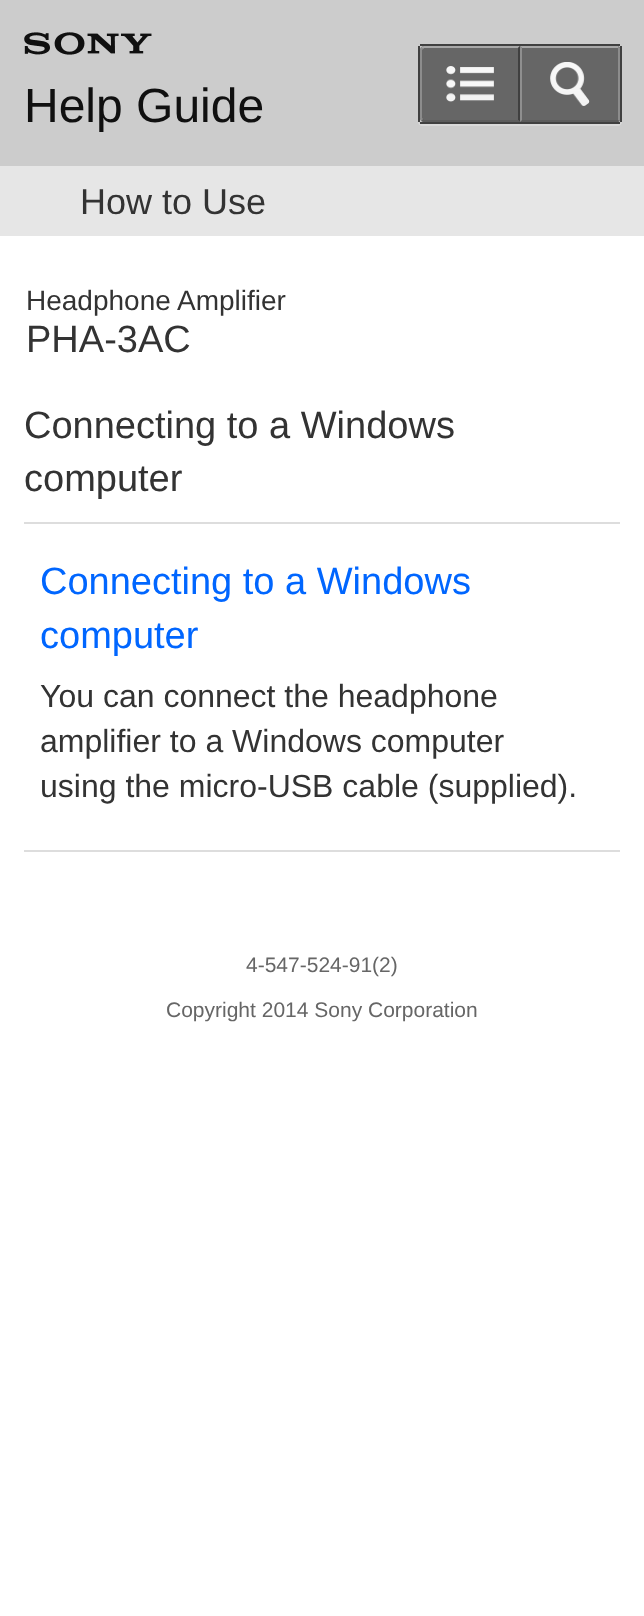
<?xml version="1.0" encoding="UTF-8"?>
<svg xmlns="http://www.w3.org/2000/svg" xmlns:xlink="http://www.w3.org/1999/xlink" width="644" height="1616">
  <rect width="100%" height="100%" fill="#ffffff" />
  <rect width="644" height="166" fill="#cccccc" />
  <image x="24" y="32" width="128" height="23" xlink:href="image1.png" />
  <path d="M 418 120 v 2 c 0 2 2 4 4 4 h 98 v -2 h -98 c -2 0 -4 -2 -4 -4 z" fill="#d9d9d9" />
  <rect x="420" y="44" width="200" height="2" fill="#404040" />
  <rect x="420" y="122" width="100" height="2" fill="#404040" />
  <rect x="418" y="46" width="2" height="76" fill="#404040" />
  <path d="M 424 46 h 96 v 76 h -96 c -2 0 -4 -2 -4 -4 v -68 c 0 -2 2 -4 4 -4 z" fill="#666666" />
  <path d="M 424 46 l -3 1 l 2 2 l 1 -1 h 94 l 2 -2 z" fill="#a8a8a8" />
  <path d="M 520 46 l -2 2 v 72 l 2 2 z" fill="#404040" />
  <path d="M 520 122 l -2 -2 h -94 l -1 -1 l -2 2 l 3 1 z" fill="#5c5c5c" />
  <path d="M 420 50 v 68 l 1 3 l 2 -2 l -1 -1 v -68 l 1 -1 l -2 -2 z" fill="#8d8d8d" />
  <image x="446" y="66" width="48" height="36" xlink:href="image2.png" />
  <path d="M 520 124 v 2 h 98 c 2 0 4 -2 4 -4 v -2 c 0 2 -2 4 -4 4 z" fill="#d9d9d9" />
  <rect x="620" y="46" width="2" height="76" fill="#404040" />
  <rect x="520" y="122" width="100" height="2" fill="#404040" />
  <path d="M 520 46 h 98 c 1 0 2 1 2 2 v 72 c 0 1 -1 2 -2 2 h -98 z" fill="#666666" />
  <path d="M 520 46 l 2 2 h 96 l 1 -1 l -1 -1 z" fill="#a8a8a8" />
  <path d="M 620 120 v -72 l -1 -1 l -1 1 v 72 l 1 1 z" fill="#8d8d8d" />
  <path d="M 618 122 l 1 -1 l -1 -1 h -96 l -2 2 z" fill="#5c5c5c" />
  <path d="M 520 46 v 76 l 2 -2 v -72 z" fill="#8f8f8f" />
  <image x="550" y="62" width="40" height="44" xlink:href="image3.png" />
  <rect y="166" width="644" height="70" fill="#e6e6e6" />
  <rect x="24" y="522" width="596" height="2" fill="#dddddd" />
  <rect x="24" y="850" width="596" height="2" fill="#dddddd" />
  <text x="24" y="122" style="font-family: Liberation Sans; font-size: 48px; fill: #101010">Help Guide</text>
  <text x="80" y="214" style="font-family: Liberation Sans; font-size: 36px; fill: #333333">How to Use</text>
  <text x="26" y="310" style="font-family: Liberation Sans; font-size: 28px; fill: #333333">Headphone Amplifier</text>
  <text x="26" y="352" style="font-family: Liberation Sans; font-size: 38px; fill: #333333">PHA-3AC</text>
  <text x="24" y="438" style="font-family: Liberation Sans; font-size: 38px; fill: #333333">Connecting to a Windows</text>
  <text x="24" y="491" style="font-family: Liberation Sans; font-size: 38px; fill: #333333">computer</text>
  <text x="40" y="594" style="font-family: Liberation Sans; font-size: 38px; fill: #0066ff">Connecting to a Windows</text>
  <text x="40" y="648" style="font-family: Liberation Sans; font-size: 38px; fill: #0066ff">computer</text>
  <text x="40" y="707" style="font-family: Liberation Sans; font-size: 32px; fill: #333333">You can connect the headphone</text>
  <text x="40" y="752" style="font-family: Liberation Sans; font-size: 32px; fill: #333333">amplifier to a Windows computer</text>
  <text x="40" y="797" style="font-family: Liberation Sans; font-size: 32px; fill: #333333">using the micro-USB cable (supplied).</text>
  <text x="246" y="972" style="font-family: Liberation Sans; font-size: 21px; fill: #666666">4-547-524-91(2)</text>
  <text x="166" y="1017" style="font-family: Liberation Sans; font-size: 21px; fill: #666666">Copyright 2014 Sony Corporation</text>
</svg>
